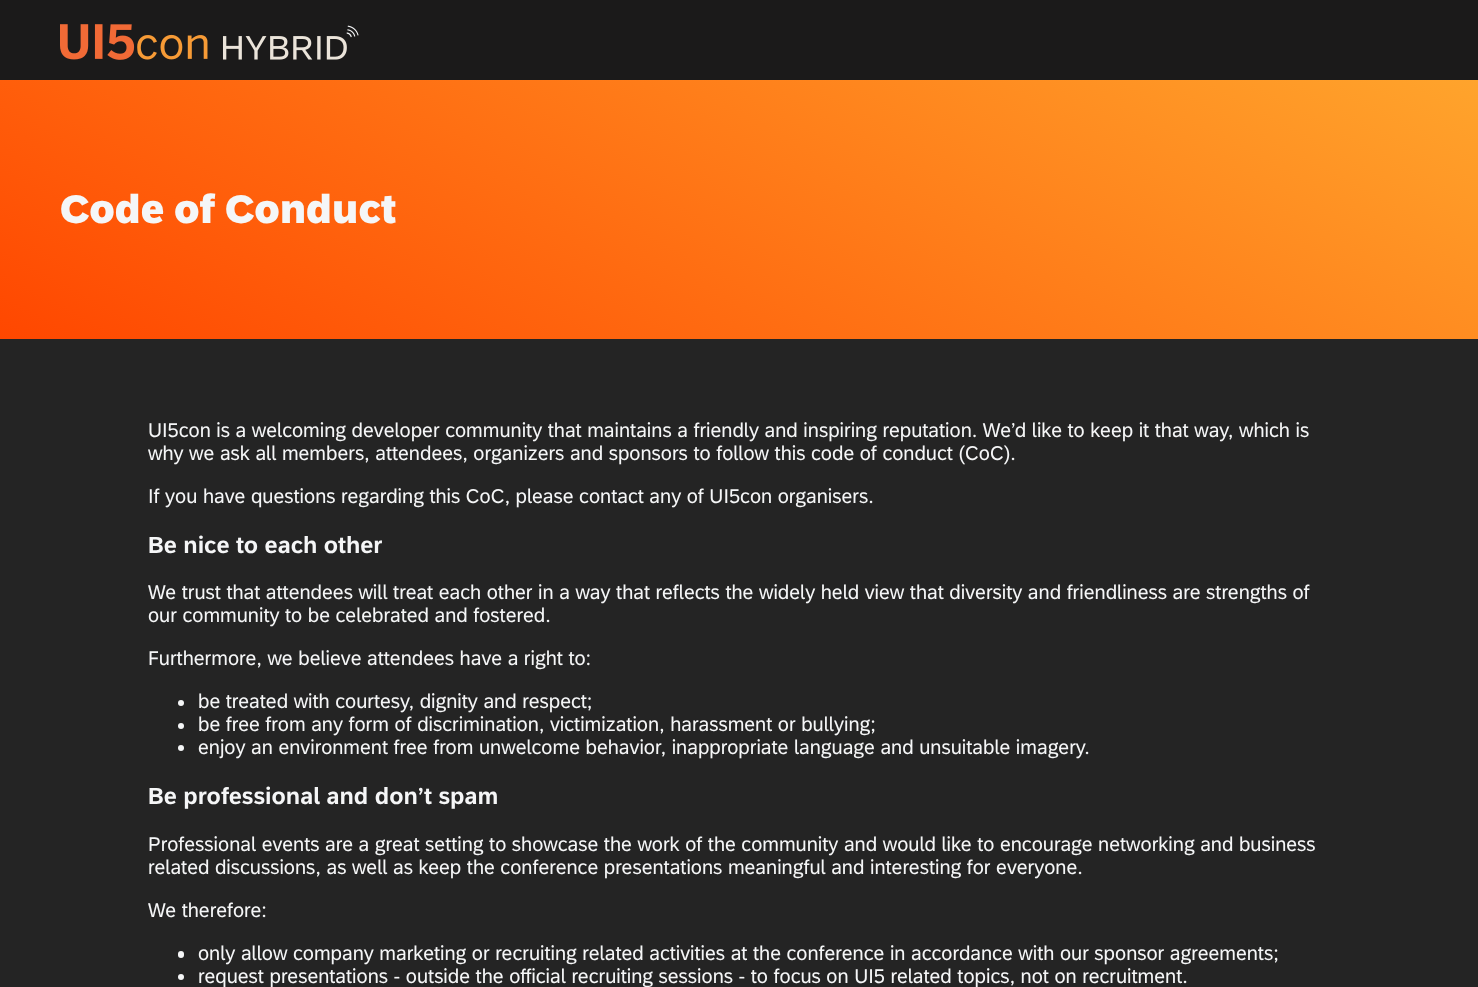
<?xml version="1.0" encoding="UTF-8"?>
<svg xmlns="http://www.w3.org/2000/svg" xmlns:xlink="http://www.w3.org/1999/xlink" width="1478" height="987">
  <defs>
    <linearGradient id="g1" gradientUnits="userSpaceOnUse" x1="956" y1="-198" x2="523" y2="617"><stop offset="0" stop-color="#ffa42c" /><stop offset="1" stop-color="#ff4700" /></linearGradient>
  </defs>
  <rect width="100%" height="100%" fill="#242424" />
  <rect width="1478" height="80" fill="#1b1a1a" />
  <image x="60" y="24" width="299" height="36" xlink:href="image1.png" />
  <rect y="80" width="1478" height="259" fill="url(#g1)" />
  <circle cx="181" cy="703" r="3" fill="#f5f6f7" />
  <circle cx="181" cy="726" r="3" fill="#f5f6f7" />
  <circle cx="181" cy="748" r="3" fill="#f5f6f7" />
  <rect x="178" y="951" width="6" height="7" rx="3" fill="#f5f6f7" />
  <circle cx="181" cy="977" r="3" fill="#f5f6f7" />
  <text x="60" y="223" style="font-family: '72'; font-size: 40px; font-weight: 900; fill: #f5f6f7">Code of Conduct</text>
  <text x="148" y="437" style="font-family: '72'; font-size: 20px; fill: #f5f6f7">UI5con is a welcoming developer community that maintains a friendly and inspiring reputation. We’d like to keep it that way, which is</text>
  <text x="148" y="460" style="font-family: '72'; font-size: 20px; fill: #f5f6f7">why we ask all members, attendees, organizers and sponsors to follow this code of conduct (CoC).</text>
  <text x="148" y="503" style="font-family: '72'; font-size: 20px; fill: #f5f6f7">If you have questions regarding this CoC, please contact any of UI5con organisers.</text>
  <text x="148" y="553" style="font-family: '72'; font-size: 23.4px; font-weight: bold; fill: #f5f6f7">Be nice to each other</text>
  <text x="148" y="599" style="font-family: '72'; font-size: 20px; fill: #f5f6f7">We trust that attendees will treat each other in a way that reflects the widely held view that diversity and friendliness are strengths of</text>
  <text x="148" y="622" style="font-family: '72'; font-size: 20px; fill: #f5f6f7">our community to be celebrated and fostered.</text>
  <text x="148" y="665" style="font-family: '72'; font-size: 20px; fill: #f5f6f7">Furthermore, we believe attendees have a right to:</text>
  <text x="198" y="708" style="font-family: '72'; font-size: 20px; fill: #f5f6f7">be treated with courtesy, dignity and respect;</text>
  <text x="198" y="731" style="font-family: '72'; font-size: 20px; fill: #f5f6f7">be free from any form of discrimination, victimization, harassment or bullying;</text>
  <text x="198" y="754" style="font-family: '72'; font-size: 20px; fill: #f5f6f7">enjoy an environment free from unwelcome behavior, inappropriate language and unsuitable imagery.</text>
  <text x="148" y="804" style="font-family: '72'; font-size: 23.4px; font-weight: bold; fill: #f5f6f7">Be professional and don’t spam</text>
  <text x="148" y="851" style="font-family: '72'; font-size: 20px; fill: #f5f6f7">Professional events are a great setting to showcase the work of the community and would like to encourage networking and business</text>
  <text x="148" y="874" style="font-family: '72'; font-size: 20px; fill: #f5f6f7">related discussions, as well as keep the conference presentations meaningful and interesting for everyone.</text>
  <text x="148" y="917" style="font-family: '72'; font-size: 20px; fill: #f5f6f7">We therefore:</text>
  <text x="198" y="960" style="font-family: '72'; font-size: 20px; fill: #f5f6f7">only allow company marketing or recruiting related activities at the conference in accordance with our sponsor agreements;</text>
  <text x="198" y="983" style="font-family: '72'; font-size: 20px; fill: #f5f6f7">request presentations - outside the official recruiting sessions - to focus on UI5 related topics, not on recruitment.</text>
</svg>
